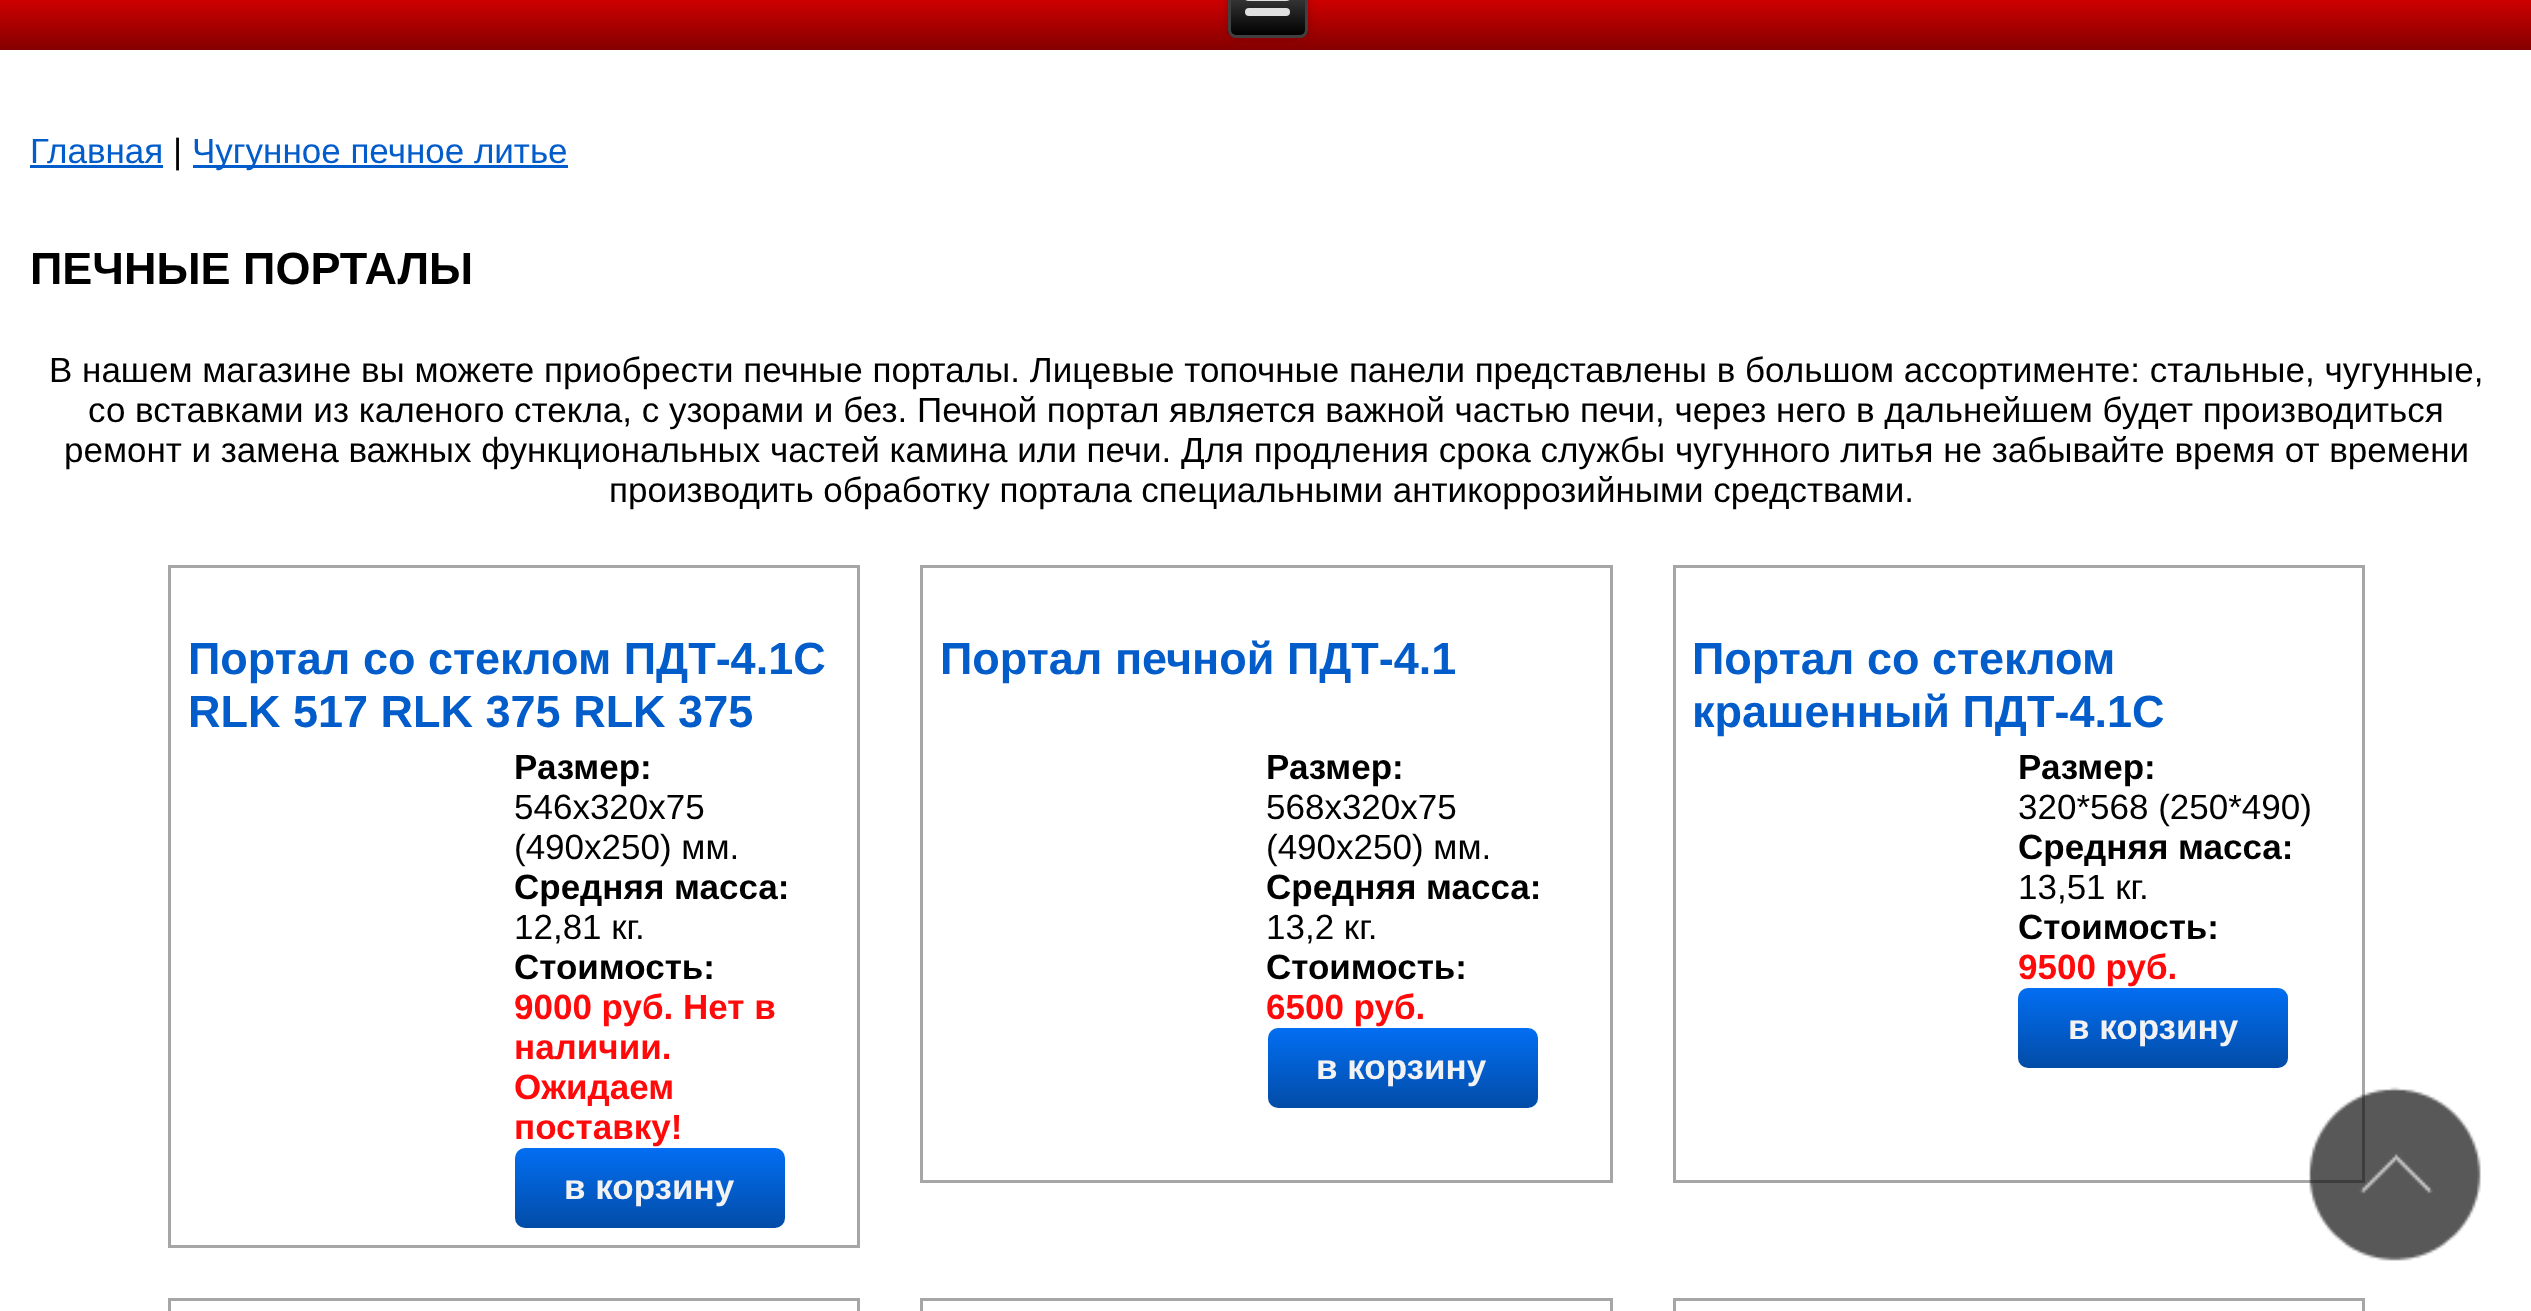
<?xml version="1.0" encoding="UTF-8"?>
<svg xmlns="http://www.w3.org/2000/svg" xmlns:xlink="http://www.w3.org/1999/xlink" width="2531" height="1311">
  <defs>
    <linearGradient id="g1" gradientUnits="userSpaceOnUse" x1="1266" y1="-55" x2="1266" y2="50"><stop offset="0" stop-color="#ff1f1f" /><stop offset="0.2" stop-color="#ff0000" /><stop offset="1" stop-color="#850000" /></linearGradient>
    <clipPath id="clip1"><rect x="1228" y="-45" width="80" height="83" rx="8" /></clipPath>
    <linearGradient id="g2" gradientUnits="userSpaceOnUse" x1="1268" y1="-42" x2="1268" y2="35"><stop offset="0" stop-color="#707070" /><stop offset="1" stop-color="#000000" /></linearGradient>
    <linearGradient id="g3" gradientUnits="userSpaceOnUse" x1="650" y1="1148" x2="650" y2="1228"><stop offset="0" stop-color="#026ef2" /><stop offset="1" stop-color="#024ca7" /></linearGradient>
    <linearGradient id="g4" gradientUnits="userSpaceOnUse" x1="1403" y1="1028" x2="1403" y2="1108"><stop offset="0" stop-color="#026ef2" /><stop offset="1" stop-color="#024ca7" /></linearGradient>
    <linearGradient id="g5" gradientUnits="userSpaceOnUse" x1="2153" y1="988" x2="2153" y2="1068"><stop offset="0" stop-color="#026ef2" /><stop offset="1" stop-color="#024ca7" /></linearGradient>
  </defs>
  <rect width="100%" height="100%" fill="#ffffff" />
  <rect width="2531" height="50" fill="url(#g1)" />
  <rect x="1228" y="-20" width="80" height="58" rx="8" fill="#000000" fill-opacity="0.2" filter="blur(4px)" />
  <g clip-path="url(#clip1)">
    <rect x="1228" width="80" height="35" fill="url(#g2)" />
  </g>
  <rect x="1229.5" y="-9.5" width="77" height="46" rx="6.5" fill="none" stroke="#404040" stroke-width="3" />
  <rect x="1245" y="-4" width="45" height="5" rx="4" fill="#e0e0e0" />
  <rect x="1245" y="8" width="45" height="8" rx="4" fill="#e0e0e0" />
  <rect x="30" y="165" width="133" height="3" fill="#025cca" />
  <rect x="193" y="165" width="375" height="3" fill="#025cca" />
  <rect x="169.5" y="566.5" width="689" height="680" fill="none" stroke="#a6a6a6" stroke-width="3" />
  <rect x="515" y="1148" width="270" height="80" rx="10" fill="url(#g3)" />
  <rect x="921.5" y="566.5" width="690" height="615" fill="none" stroke="#a6a6a6" stroke-width="3" />
  <rect x="1268" y="1028" width="270" height="80" rx="10" fill="url(#g4)" />
  <rect x="1674.5" y="566.5" width="689" height="615" fill="none" stroke="#a6a6a6" stroke-width="3" />
  <rect x="2018" y="988" width="270" height="80" rx="10" fill="url(#g5)" />
  <rect x="169.5" y="1299.5" width="689" height="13" fill="none" stroke="#a6a6a6" stroke-width="3" />
  <rect x="921.5" y="1299.5" width="690" height="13" fill="none" stroke="#a6a6a6" stroke-width="3" />
  <rect x="1674.5" y="1299.5" width="689" height="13" fill="none" stroke="#a6a6a6" stroke-width="3" />
  <image x="2308" y="1087" width="173" height="174" xlink:href="image1.png" />
  <text x="30" y="163" style="font-family: Liberation Sans; font-size: 35px; fill: #025cca">Главная</text>
  <text x="173" y="163" style="font-family: Liberation Sans; font-size: 35px; fill: #000000">|</text>
  <text x="192" y="163" style="font-family: Liberation Sans; font-size: 35px; fill: #025cca">Чугунное печное литье</text>
  <text x="30" y="284" style="font-family: Liberation Sans; font-size: 45px; font-weight: bold; fill: #000000">ПЕЧНЫЕ ПОРТАЛЫ</text>
  <text x="49" y="382" style="font-family: Liberation Sans; font-size: 35px; fill: #000000">В нашем магазине вы можете приобрести печные порталы. Лицевые топочные панели представлены в большом ассортименте: стальные, чугунные,</text>
  <text x="88" y="422" style="font-family: Liberation Sans; font-size: 35px; fill: #000000">со вставками из каленого стекла, с узорами и без. Печной портал является важной частью печи, через него в дальнейшем будет производиться</text>
  <text x="64" y="462" style="font-family: Liberation Sans; font-size: 35px; fill: #000000">ремонт и замена важных функциональных частей камина или печи. Для продления срока службы чугунного литья не забывайте время от времени</text>
  <text x="609" y="502" style="font-family: Liberation Sans; font-size: 35px; fill: #000000">производить обработку портала специальными антикоррозийными средствами.</text>
  <text x="188" y="674" style="font-family: Liberation Sans; font-size: 45px; font-weight: bold; fill: #025cca">Портал со стеклом ПДТ-4.1С</text>
  <text x="188" y="727" style="font-family: Liberation Sans; font-size: 45px; font-weight: bold; fill: #025cca">RLK 517 RLK 375 RLK 375</text>
  <text x="514" y="779" style="font-family: Liberation Sans; font-size: 35px; font-weight: bold; fill: #000000">Размер:</text>
  <text x="514" y="819" style="font-family: Liberation Sans; font-size: 35px; fill: #000000">546х320х75</text>
  <text x="514" y="859" style="font-family: Liberation Sans; font-size: 35px; fill: #000000">(490х250) мм.</text>
  <text x="514" y="899" style="font-family: Liberation Sans; font-size: 35px; font-weight: bold; fill: #000000">Средняя масса:</text>
  <text x="514" y="939" style="font-family: Liberation Sans; font-size: 35px; fill: #000000">12,81 кг.</text>
  <text x="514" y="979" style="font-family: Liberation Sans; font-size: 35px; font-weight: bold; fill: #000000">Стоимость:</text>
  <text x="514" y="1019" style="font-family: Liberation Sans; font-size: 35px; font-weight: bold; fill: #ff0a0a">9000 руб. Нет в</text>
  <text x="514" y="1059" style="font-family: Liberation Sans; font-size: 35px; font-weight: bold; fill: #ff0a0a">наличии.</text>
  <text x="514" y="1099" style="font-family: Liberation Sans; font-size: 35px; font-weight: bold; fill: #ff0a0a">Ожидаем</text>
  <text x="514" y="1139" style="font-family: Liberation Sans; font-size: 35px; font-weight: bold; fill: #ff0a0a">поставку!</text>
  <text x="564" y="1199" style="font-family: Liberation Sans; font-size: 35px; font-weight: bold; fill: #f2f2f2">в корзину</text>
  <text x="940" y="674" style="font-family: Liberation Sans; font-size: 45px; font-weight: bold; fill: #025cca">Портал печной ПДТ-4.1</text>
  <text x="1266" y="779" style="font-family: Liberation Sans; font-size: 35px; font-weight: bold; fill: #000000">Размер:</text>
  <text x="1266" y="819" style="font-family: Liberation Sans; font-size: 35px; fill: #000000">568х320х75</text>
  <text x="1266" y="859" style="font-family: Liberation Sans; font-size: 35px; fill: #000000">(490х250) мм.</text>
  <text x="1266" y="899" style="font-family: Liberation Sans; font-size: 35px; font-weight: bold; fill: #000000">Средняя масса:</text>
  <text x="1266" y="939" style="font-family: Liberation Sans; font-size: 35px; fill: #000000">13,2 кг.</text>
  <text x="1266" y="979" style="font-family: Liberation Sans; font-size: 35px; font-weight: bold; fill: #000000">Стоимость:</text>
  <text x="1266" y="1019" style="font-family: Liberation Sans; font-size: 35px; font-weight: bold; fill: #ff0a0a">6500 руб.</text>
  <text x="1316" y="1079" style="font-family: Liberation Sans; font-size: 35px; font-weight: bold; fill: #f2f2f2">в корзину</text>
  <text x="1692" y="674" style="font-family: Liberation Sans; font-size: 45px; font-weight: bold; fill: #025cca">Портал со стеклом</text>
  <text x="1692" y="727" style="font-family: Liberation Sans; font-size: 45px; font-weight: bold; fill: #025cca">крашенный ПДТ-4.1С</text>
  <text x="2018" y="779" style="font-family: Liberation Sans; font-size: 35px; font-weight: bold; fill: #000000">Размер:</text>
  <text x="2018" y="819" style="font-family: Liberation Sans; font-size: 35px; fill: #000000">320*568 (250*490)</text>
  <text x="2018" y="859" style="font-family: Liberation Sans; font-size: 35px; font-weight: bold; fill: #000000">Средняя масса:</text>
  <text x="2018" y="899" style="font-family: Liberation Sans; font-size: 35px; fill: #000000">13,51 кг.</text>
  <text x="2018" y="939" style="font-family: Liberation Sans; font-size: 35px; font-weight: bold; fill: #000000">Стоимость:</text>
  <text x="2018" y="979" style="font-family: Liberation Sans; font-size: 35px; font-weight: bold; fill: #ff0a0a">9500 руб.</text>
  <text x="2068" y="1039" style="font-family: Liberation Sans; font-size: 35px; font-weight: bold; fill: #f2f2f2">в корзину</text>
</svg>
